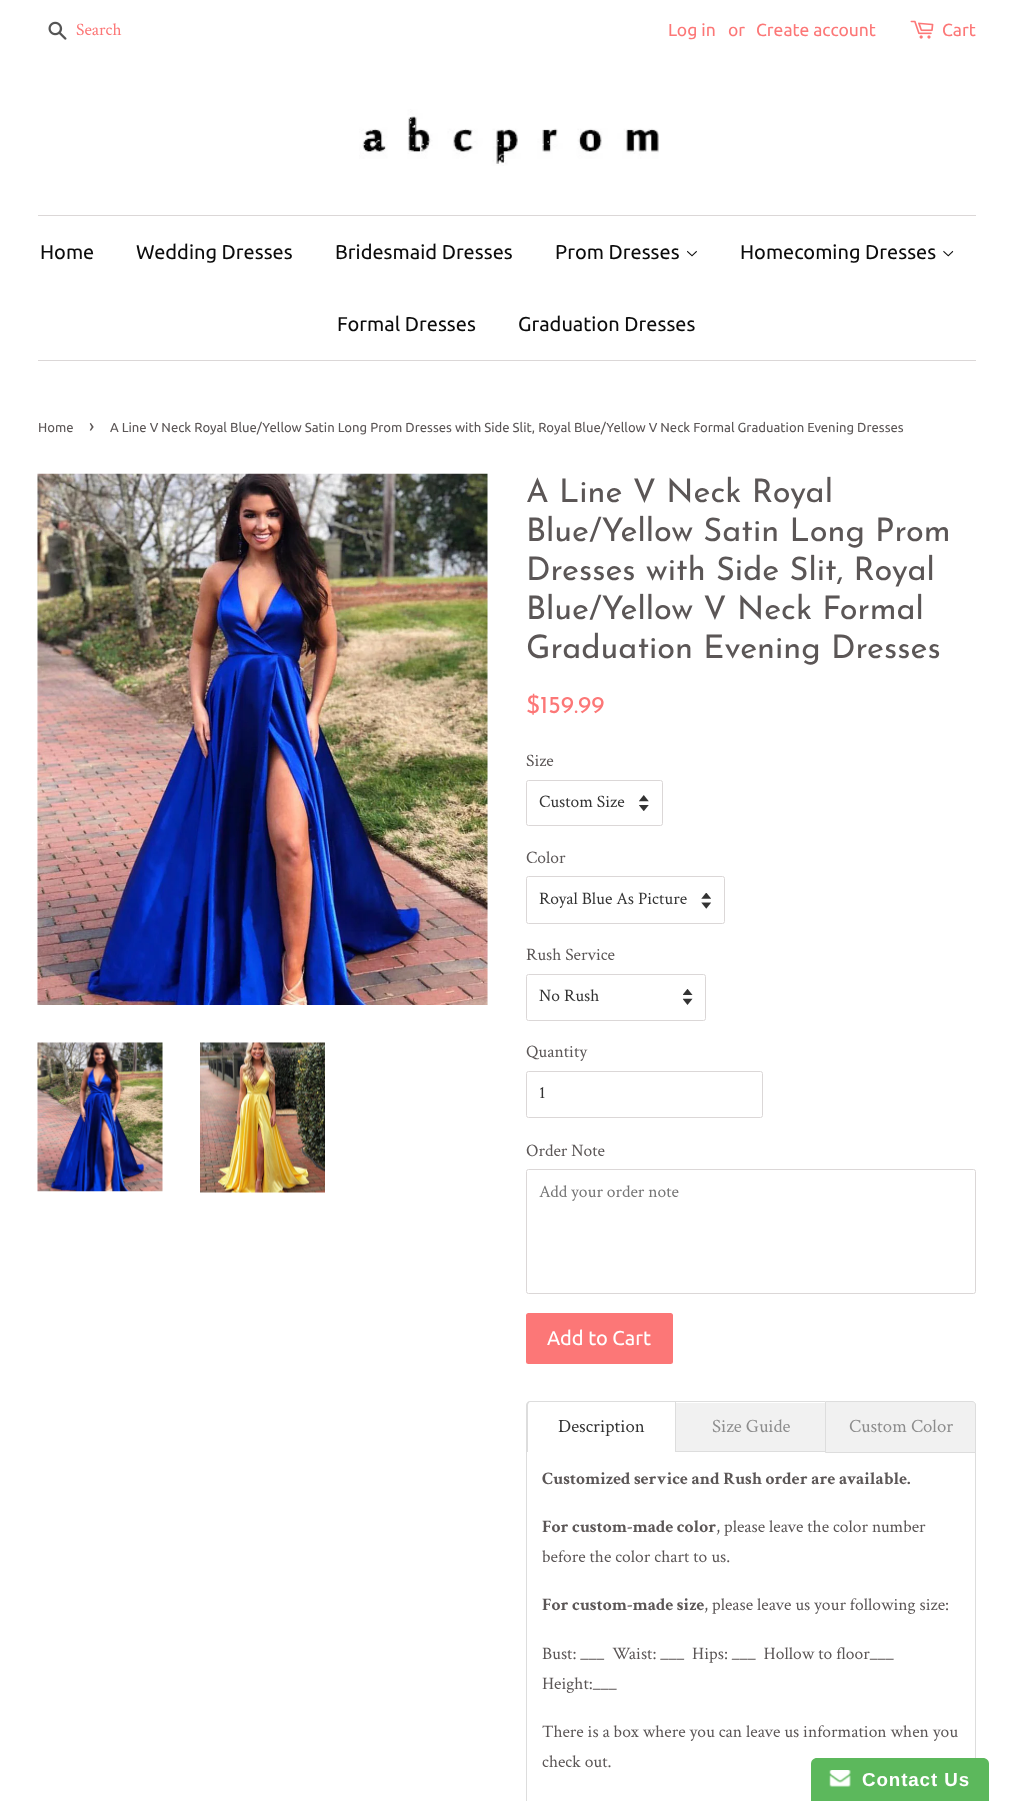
<?xml version="1.0" encoding="UTF-8"?>
<svg xmlns="http://www.w3.org/2000/svg" xmlns:xlink="http://www.w3.org/1999/xlink" width="1013" height="1801">
  <defs>
    <clipPath id="clip1"><rect x="543" y="1418" width="117" height="18" /></clipPath>
  </defs>
  <rect width="100%" height="100%" fill="#ffffff" />
  <image x="48" y="21" width="19" height="19" xlink:href="image1.png" />
  <image x="910" y="20" width="24" height="19" xlink:href="image2.png" />
  <image x="359" y="109" width="300" height="57" xlink:href="image3.png" />
  <rect x="38" y="215" width="938" height="1" fill="#dbd7d7" />
  <rect x="38" y="360" width="938" height="1" fill="#dbd7d7" />
  <image x="687" y="250" width="10" height="7" xlink:href="image4.png" />
  <image x="943" y="250" width="11" height="7" xlink:href="image5.png" />
  <image x="37" y="473" width="451" height="532" xlink:href="image6.png" />
  <image x="37" y="1042" width="126" height="150" xlink:href="image7.png" />
  <image x="200" y="1042" width="125" height="151" xlink:href="image8.png" />
  <image x="639" y="795" width="10" height="16" xlink:href="image9.png" />
  <rect x="526.5" y="780.5" width="136" height="45" rx="2" fill="none" stroke="#dbd7d7" />
  <image x="701" y="893" width="10" height="16" xlink:href="image10.png" />
  <rect x="526.5" y="876.5" width="198" height="47" rx="2" fill="none" stroke="#dbd7d7" />
  <image x="683" y="989" width="10" height="16" xlink:href="image11.png" />
  <rect x="526.5" y="974.5" width="179" height="46" rx="2" fill="none" stroke="#dbd7d7" />
  <rect x="526.5" y="1071.5" width="236" height="46" rx="2" fill="none" stroke="#dbd7d7" />
  <rect x="526.5" y="1169.5" width="449" height="124" rx="2" fill="none" stroke="#dbd7d7" />
  <rect x="526" y="1313" width="147" height="51" rx="2.5" fill="#fc7777" />
  <rect x="526.5" y="1451.5" width="449" height="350" fill="none" stroke="#dddddd" />
  <path d="M 530.5 1403 h 144.5 v 50 h -147 v -47.5 c 0 -1.5 1 -2.5 2.5 -2.5 z" fill="#ffffff" />
  <path d="M 530 1401 h 146 v 51 h -150 v -47 c 0 -2 2 -4 4 -4 z m 0 1 h 145 v 50 h -147 v -47 c 0 -1 1 -3 2 -3 z" fill="#dddddd" fill-rule="evenodd" />
  <rect x="676" y="1403" width="149" height="48" fill="#f1f1f1" />
  <rect x="676" y="1401" width="149" height="1" fill="#dddddd" />
  <path d="M 825.5 1401.5 h 146.5 c 2 0 3.5 1.5 3.5 3.5 v 47.5 h -150 z" fill="#f1f1f1" stroke="#dddddd" />
  <path d="M 817 1758 h 166 c 3.5 0 6 2.5 6 6 v 37 h -178 v -37 c 0 -3.5 2.5 -6 6 -6 z" fill="#5cb85c" />
  <image x="829" y="1770" width="22" height="17" xlink:href="image12.png" />
  <text x="76" y="35" style="font-family: Crimson Text; font-size: 17.5px; fill: #fc7777">Search</text>
  <text x="668" y="36" style="font-family: Ubuntu; font-size: 17.5px; fill: #fc7777">Log in</text>
  <text x="728" y="36" style="font-family: Ubuntu; font-size: 17.5px; fill: #fc7777">or</text>
  <text x="756" y="36" style="font-family: Ubuntu; font-size: 17.5px; fill: #fc7777">Create account</text>
  <text x="942" y="36" style="font-family: Ubuntu; font-size: 17.5px; fill: #fc7777">Cart</text>
  <text x="40" y="259" style="font-family: Ubuntu; font-size: 20px; fill: #0c0c0c">Home</text>
  <text x="136" y="259" style="font-family: Ubuntu; font-size: 20px; fill: #0c0c0c">Wedding Dresses</text>
  <text x="335" y="259" style="font-family: Ubuntu; font-size: 20px; fill: #0c0c0c">Bridesmaid Dresses</text>
  <text x="555" y="259" style="font-family: Ubuntu; font-size: 20px; fill: #0c0c0c">Prom Dresses</text>
  <text x="740" y="259" style="font-family: Ubuntu; font-size: 20px; fill: #0c0c0c">Homecoming Dresses</text>
  <text x="337" y="331" style="font-family: Ubuntu; font-size: 20px; fill: #0c0c0c">Formal Dresses</text>
  <text x="518" y="331" style="font-family: Ubuntu; font-size: 20px; fill: #0c0c0c">Graduation Dresses</text>
  <text x="38" y="432" style="font-family: Ubuntu; font-size: 13.12px; fill: #5b5656">Home</text>
  <text x="89" y="432" style="font-family: Ubuntu; font-size: 18px; fill: #5b5656">›</text>
  <text x="110" y="432" style="font-family: Ubuntu; font-size: 13.12px; fill: #5b5656">A Line V Neck Royal Blue/Yellow Satin Long Prom Dresses with Side Slit, Royal Blue/Yellow V Neck Formal Graduation Evening Dresses</text>
  <text x="526" y="502" style="font-family: Josefin Sans; font-size: 32.5px; font-weight: 100; fill: #5b5656">A Line V Neck Royal</text>
  <text x="526" y="541" style="font-family: Josefin Sans; font-size: 32.5px; font-weight: 100; fill: #5b5656">Blue/Yellow Satin Long Prom</text>
  <text x="526" y="580" style="font-family: Josefin Sans; font-size: 32.5px; font-weight: 100; fill: #5b5656">Dresses with Side Slit, Royal</text>
  <text x="526" y="619" style="font-family: Josefin Sans; font-size: 32.5px; font-weight: 100; fill: #5b5656">Blue/Yellow V Neck Formal</text>
  <text x="526" y="658" style="font-family: Josefin Sans; font-size: 32.5px; font-weight: 100; fill: #5b5656">Graduation Evening Dresses</text>
  <text x="526" y="713" style="font-family: Josefin Sans; font-size: 24.5px; font-weight: 100; fill: #fc7777">$159.99</text>
  <text x="526" y="766" style="font-family: Crimson Text; font-size: 17.5px; fill: #5b5656">Size</text>
  <text x="539" y="807" style="font-family: Crimson Text; font-size: 17.5px; fill: #333333">Custom Size</text>
  <text x="526" y="863" style="font-family: Crimson Text; font-size: 17.5px; fill: #5b5656">Color</text>
  <text x="539" y="904" style="font-family: Crimson Text; font-size: 17.5px; fill: #333333">Royal Blue As Picture</text>
  <text x="526" y="960" style="font-family: Crimson Text; font-size: 17.5px; fill: #5b5656">Rush Service</text>
  <text x="539" y="1001" style="font-family: Crimson Text; font-size: 17.5px; fill: #333333">No Rush</text>
  <text x="526" y="1057" style="font-family: Crimson Text; font-size: 17.5px; fill: #5b5656">Quantity</text>
  <text x="539" y="1098" style="font-family: Crimson Text; font-size: 17.5px; fill: #333333">1</text>
  <text x="526" y="1156" style="font-family: Crimson Text; font-size: 17.5px; fill: #5b5656">Order Note</text>
  <text x="539" y="1197" style="font-family: Crimson Text; font-size: 17.5px; fill: #757575">Add your order note</text>
  <text x="547" y="1345" style="font-family: Ubuntu; font-size: 20px; fill: #ffffff">Add to Cart</text>
  <g clip-path="url(#clip1)">
    <text x="558" y="1432" style="font-family: Crimson Text; font-size: 18.75px; fill: #333333">Description</text>
  </g>
  <text x="712" y="1432" style="font-family: Crimson Text; font-size: 18.75px; fill: #8d8d8d">Size Guide</text>
  <text x="849" y="1432" style="font-family: Crimson Text; font-size: 18.75px; fill: #8d8d8d">Custom Color</text>
  <text x="542" y="1484" style="font-family: Crimson Text; font-size: 17.5px; font-weight: bold; fill: #5b5656">Customized service and Rush order are available.</text>
  <text x="542" y="1532" style="font-family: Crimson Text; font-size: 17.5px; font-weight: bold; fill: #5b5656">For custom-made color</text>
  <text x="716" y="1532" style="font-family: Crimson Text; font-size: 17.5px; fill: #5b5656">, please leave the color number</text>
  <text x="542" y="1562" style="font-family: Crimson Text; font-size: 17.5px; fill: #5b5656">before the color chart to us.</text>
  <text x="542" y="1610" style="font-family: Crimson Text; font-size: 17.5px; font-weight: bold; fill: #5b5656">For custom-made size</text>
  <text x="704" y="1610" style="font-family: Crimson Text; font-size: 17.5px; fill: #5b5656">, please leave us your following size:</text>
  <text x="542" y="1659" style="font-family: Crimson Text; font-size: 17.5px; fill: #5b5656" xml:space="preserve">Bust: ___  Waist: ___  Hips: ___  Hollow to floor___</text>
  <text x="542" y="1689" style="font-family: Crimson Text; font-size: 17.5px; fill: #5b5656">Height:___</text>
  <text x="542" y="1737" style="font-family: Crimson Text; font-size: 17.5px; fill: #5b5656">There is a box where you can leave us information when you</text>
  <text x="542" y="1767" style="font-family: Crimson Text; font-size: 17.5px; fill: #5b5656">check out.</text>
  <text x="862" y="1786" style="font-family: Liberation Sans; font-size: 18.75px; font-weight: bold; letter-spacing: 0.9px; fill: #ffffff">Contact Us</text>
</svg>
